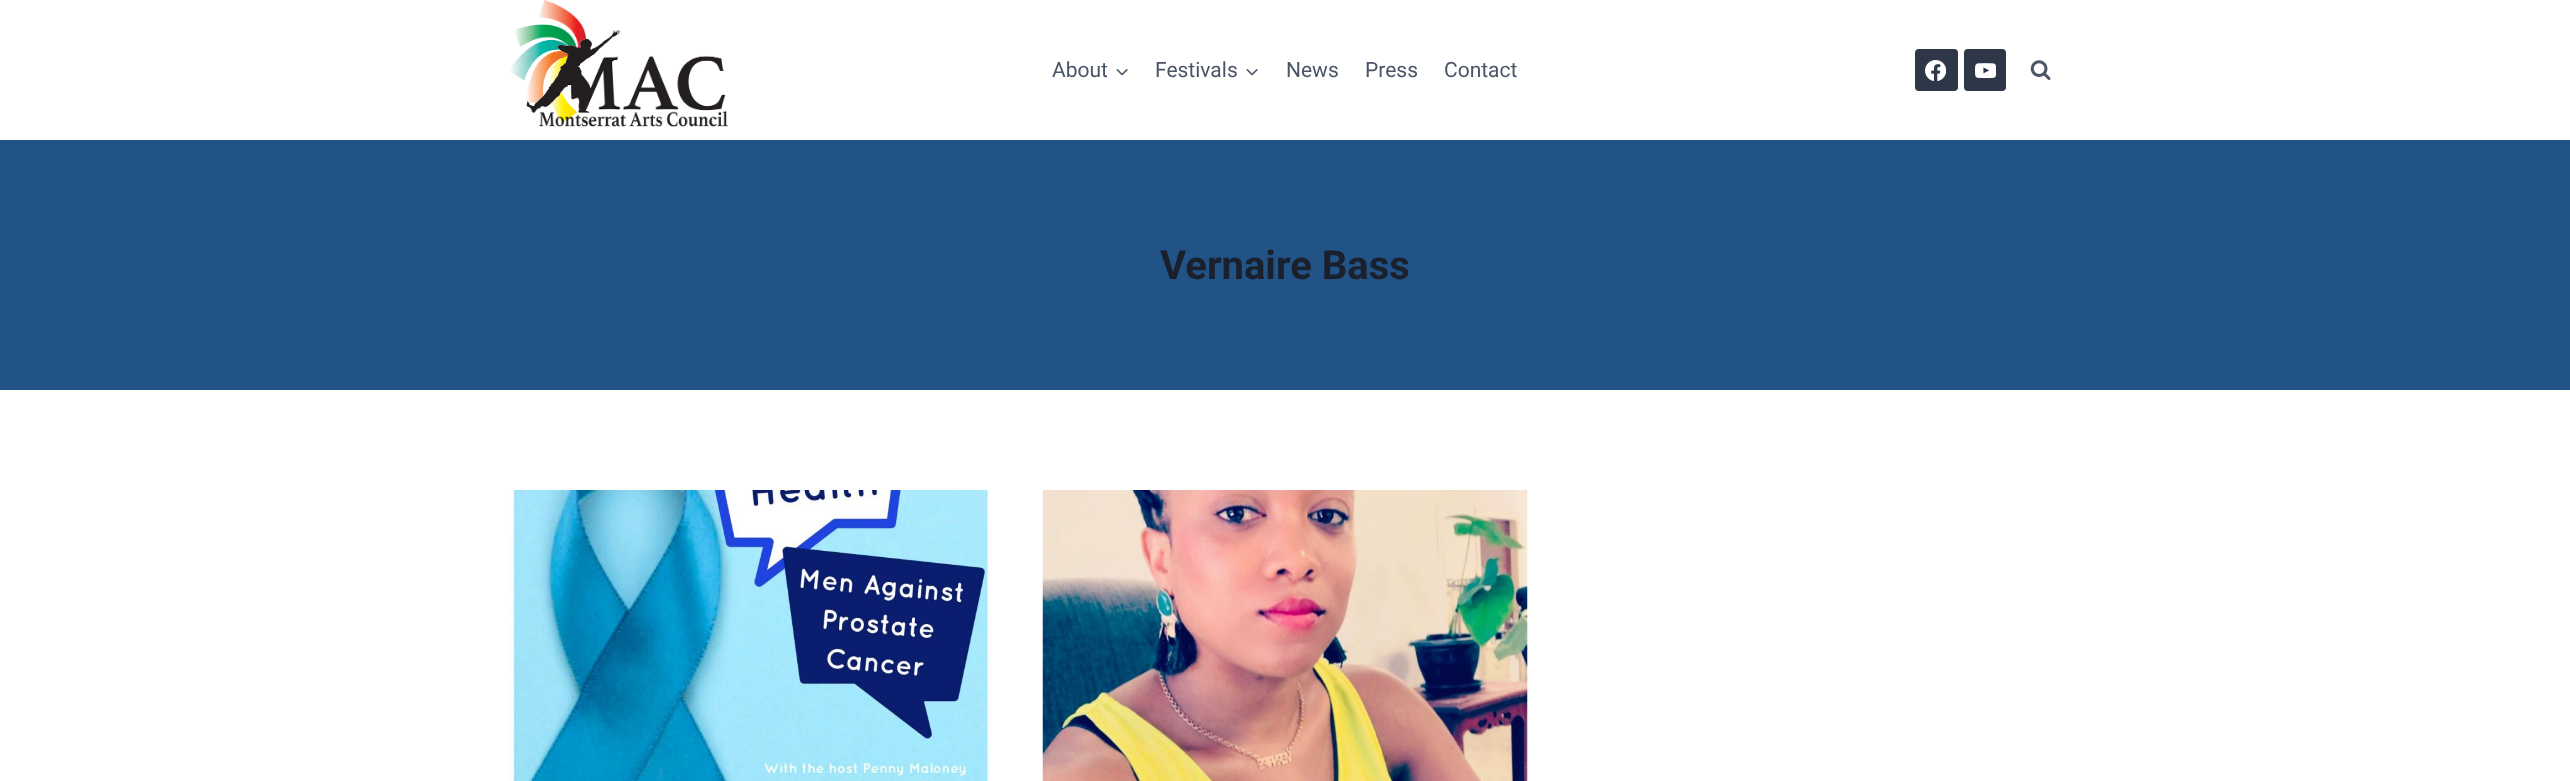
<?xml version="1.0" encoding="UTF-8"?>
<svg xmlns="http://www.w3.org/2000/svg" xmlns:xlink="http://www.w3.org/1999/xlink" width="2570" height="781">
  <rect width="100%" height="100%" fill="#ffffff" />
  <image x="510" y="0" width="218" height="127" xlink:href="image1.png" />
  <image x="1116" y="69" width="12" height="7" xlink:href="image2.png" />
  <image x="1246" y="69" width="12" height="7" xlink:href="image2.png" />
  <rect x="1915" y="49" width="43" height="42" rx="4" fill="#2d3748" />
  <image x="1925" y="60" width="21" height="21" xlink:href="image3.png" />
  <rect x="1964" y="49" width="42" height="42" rx="4" fill="#2d3748" />
  <image x="1975" y="63" width="21" height="16" xlink:href="image4.png" />
  <image x="2030" y="60" width="21" height="20" xlink:href="image5.png" />
  <rect y="140" width="2570" height="250" fill="#215387" />
  <image x="509" y="490" width="483" height="291" xlink:href="image6.png" />
  <image x="1042" y="490" width="486" height="291" xlink:href="image7.png" />
  <text x="1052" y="77" style="font-family: Roboto; font-size: 21px; fill: #4a5568">About</text>
  <text x="1155" y="77" style="font-family: Roboto; font-size: 21px; fill: #4a5568">Festivals</text>
  <text x="1286" y="77" style="font-family: Roboto; font-size: 21px; fill: #4a5568">News</text>
  <text x="1365" y="77" style="font-family: Roboto; font-size: 21px; fill: #4a5568">Press</text>
  <text x="1444" y="77" style="font-family: Roboto; font-size: 21px; fill: #4a5568">Contact</text>
  <text x="1160" y="279" style="font-family: Roboto; font-size: 40px; font-weight: bold; fill: #1a202c">Vernaire Bass</text>
</svg>
